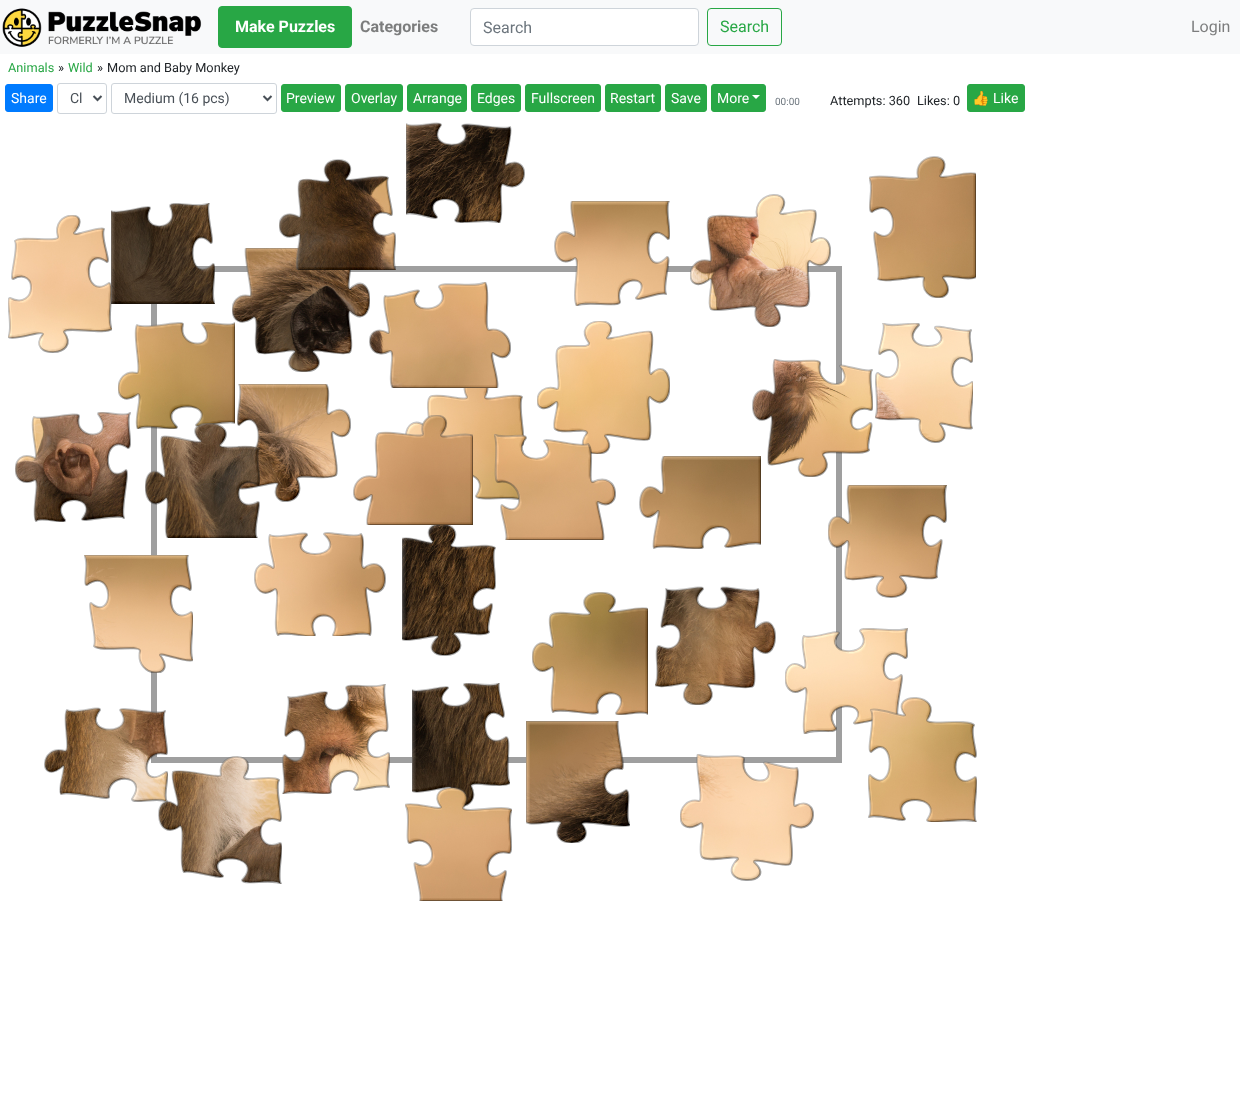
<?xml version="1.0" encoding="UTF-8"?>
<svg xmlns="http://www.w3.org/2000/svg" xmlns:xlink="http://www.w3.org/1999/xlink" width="1240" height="1108">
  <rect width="100%" height="100%" fill="#ffffff" />
  <rect width="1240" height="54" fill="#f8f9fa" />
  <image x="2" y="8" width="200" height="39" xlink:href="image1.png" />
  <rect x="218.5" y="6.5" width="133" height="41" rx="3.5" fill="#28a745" stroke="#28a745" />
  <rect x="470.5" y="8.5" width="228" height="37" rx="3.5" fill="#ffffff" stroke="#ced4da" />
  <rect x="707.5" y="8.5" width="74" height="37" rx="3.5" fill="none" stroke="#28a745" />
  <rect x="5.5" y="84.5" width="47" height="27" rx="2.5" fill="#007bff" stroke="#007bff" />
  <rect x="57.5" y="83.5" width="49" height="30" rx="2.5" fill="none" stroke="#ced4da" />
  <path d="M 93.5 96 l 4 4 l 4 -4" fill="none" stroke="#495057" stroke-width="2" />
  <rect x="111.5" y="83.5" width="165" height="30" rx="2.5" fill="none" stroke="#ced4da" />
  <path d="M 263.5 96 l 4 4 l 4 -4" fill="none" stroke="#495057" stroke-width="2" />
  <rect x="281.5" y="84.5" width="59" height="27" rx="2.5" fill="#28a745" stroke="#28a745" />
  <rect x="345.5" y="84.5" width="57" height="27" rx="2.5" fill="#28a745" stroke="#28a745" />
  <rect x="407.5" y="84.5" width="59" height="27" rx="2.5" fill="#28a745" stroke="#28a745" />
  <rect x="471.5" y="84.5" width="49" height="27" rx="2.5" fill="#28a745" stroke="#28a745" />
  <rect x="525.5" y="84.5" width="75" height="27" rx="2.5" fill="#28a745" stroke="#28a745" />
  <rect x="605.5" y="84.5" width="55" height="27" rx="2.5" fill="#28a745" stroke="#28a745" />
  <rect x="665.5" y="84.5" width="41" height="27" rx="2.5" fill="#28a745" stroke="#28a745" />
  <rect x="711.5" y="84.5" width="54" height="27" rx="2.5" fill="#28a745" stroke="#28a745" />
  <path d="M 752 95 h 8 l -4 4 z" fill="#ffffff" />
  <rect x="967.5" y="84.5" width="57" height="27" rx="2.5" fill="#28a745" stroke="#28a745" />
  <image x="8" y="122" width="969" height="779" xlink:href="image2.png" />
  <text x="235" y="32" style="font-family: Roboto; font-size: 16px; font-weight: bold; fill: #ffffff">Make Puzzles</text>
  <text x="360" y="32" style="font-family: Roboto; font-size: 16px; font-weight: bold; fill: #7c7d7d">Categories</text>
  <text x="483" y="33" style="font-family: Roboto; font-size: 16px; fill: #6c757d">Search</text>
  <text x="720" y="32" style="font-family: Roboto; font-size: 16px; fill: #28a745">Search</text>
  <text x="1191" y="32" style="font-family: Roboto; font-size: 16px; fill: #7c7d7d">Login</text>
  <text x="8" y="72" style="font-family: Roboto; font-size: 12.75px; fill: #28a745">Animals</text>
  <text x="58" y="72" style="font-family: Roboto; font-size: 12.75px; fill: #212529">»</text>
  <text x="68" y="72" style="font-family: Roboto; font-size: 12.75px; fill: #28a745">Wild</text>
  <text x="97" y="72" style="font-family: Roboto; font-size: 12.75px; fill: #212529">»</text>
  <text x="107" y="72" style="font-family: Roboto; font-size: 12.75px; fill: #212529">Mom and Baby Monkey</text>
  <text x="11" y="103" style="font-family: Roboto; font-size: 14px; fill: #ffffff">Share</text>
  <text x="70" y="103" style="font-family: Roboto; font-size: 14px; fill: #495057">Cl</text>
  <text x="124" y="103" style="font-family: Roboto; font-size: 14px; fill: #495057">Medium (16 pcs)</text>
  <text x="286" y="103" style="font-family: Roboto; font-size: 14px; fill: #ffffff">Preview</text>
  <text x="351" y="103" style="font-family: Roboto; font-size: 14px; fill: #ffffff">Overlay</text>
  <text x="413" y="103" style="font-family: Roboto; font-size: 14px; fill: #ffffff">Arrange</text>
  <text x="477" y="103" style="font-family: Roboto; font-size: 14px; fill: #ffffff">Edges</text>
  <text x="531" y="103" style="font-family: Roboto; font-size: 14px; fill: #ffffff">Fullscreen</text>
  <text x="610" y="103" style="font-family: Roboto; font-size: 14px; fill: #ffffff">Restart</text>
  <text x="671" y="103" style="font-family: Roboto; font-size: 14px; fill: #ffffff">Save</text>
  <text x="717" y="103" style="font-family: Roboto; font-size: 14px; fill: #ffffff">More</text>
  <text x="775" y="105" style="font-family: Roboto; font-size: 10px; fill: #6c757d">00:00</text>
  <text x="830" y="105" style="font-family: Roboto; font-size: 12.75px; fill: #212529">Attempts: 360</text>
  <text x="917" y="105" style="font-family: Roboto; font-size: 12.75px; fill: #212529">Likes: 0</text>
  <text x="972" y="103" style="font-family: Noto Color Emoji; font-size: 14px; fill: #ffffff">👍</text>
  <text x="993" y="103" style="font-family: Roboto; font-size: 14px; fill: #ffffff">Like</text>
</svg>
